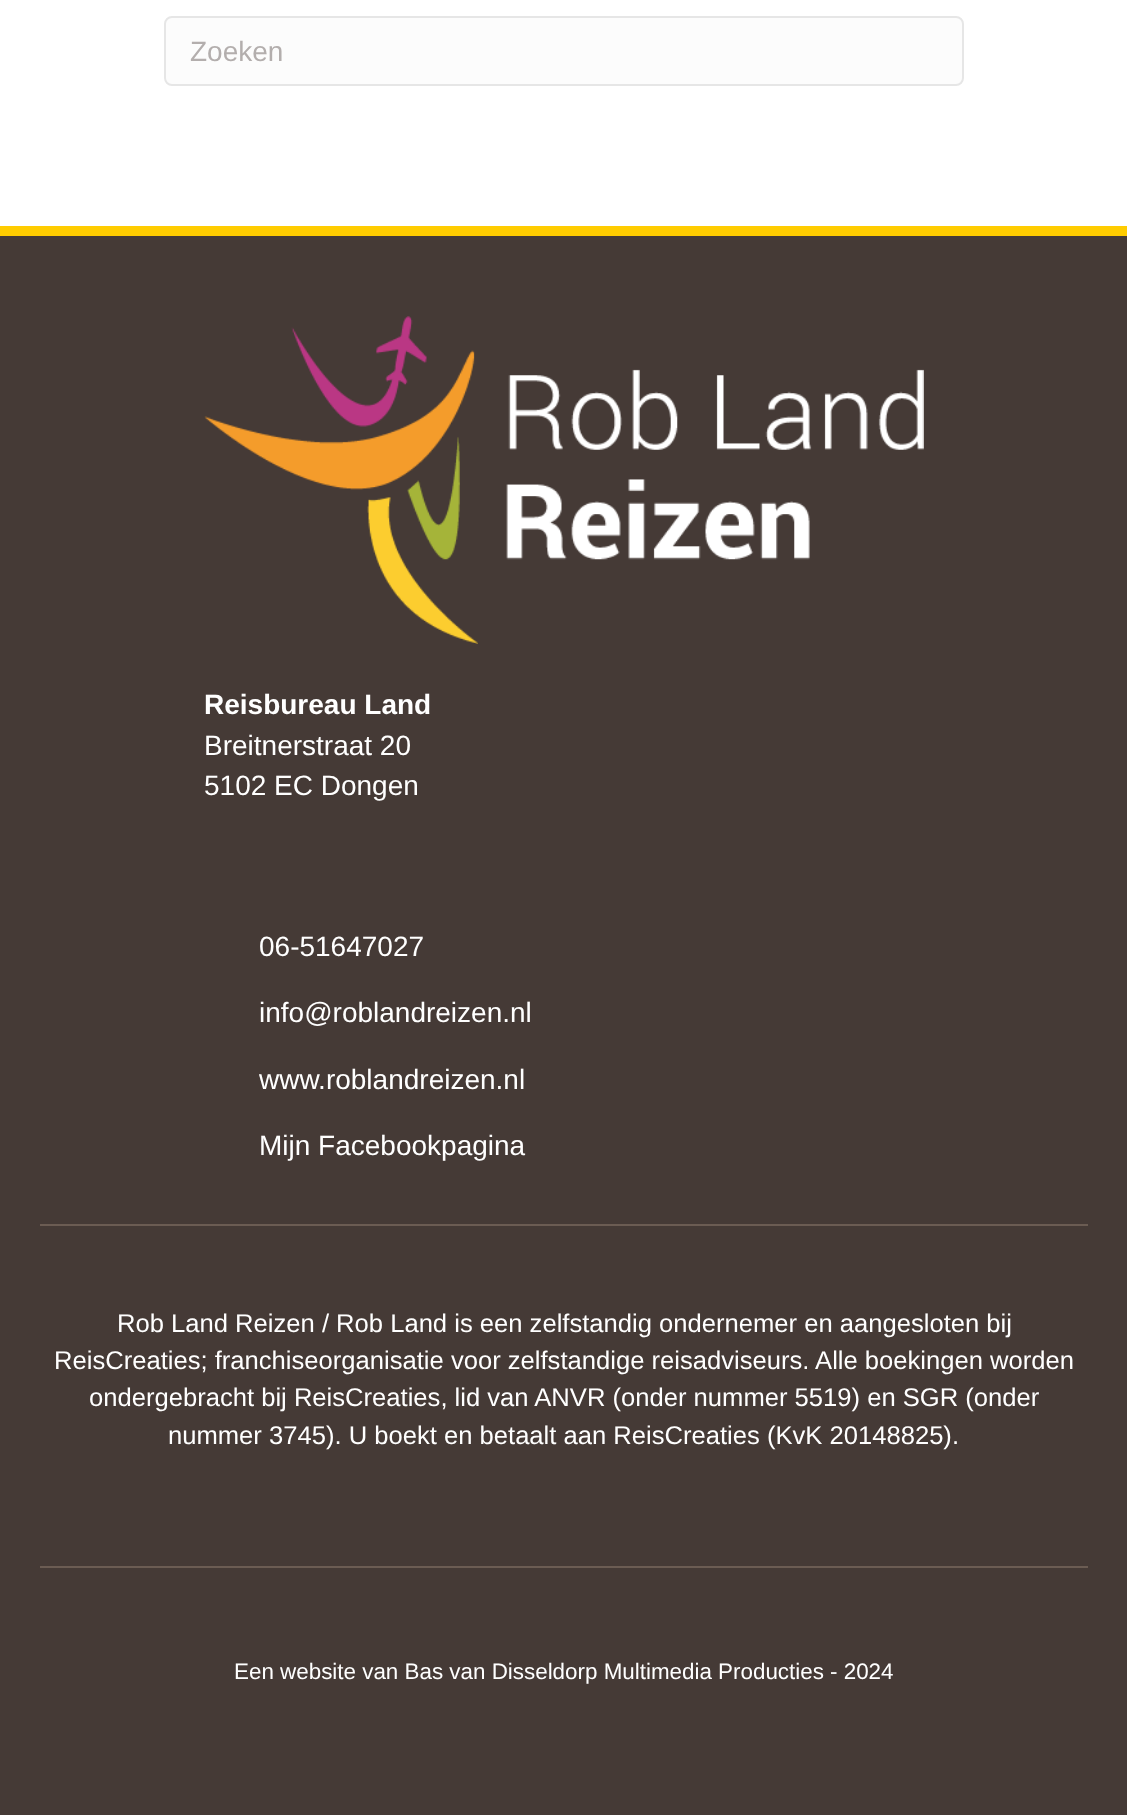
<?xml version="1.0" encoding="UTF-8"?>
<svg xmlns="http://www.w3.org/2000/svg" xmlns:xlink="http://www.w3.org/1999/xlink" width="1127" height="1815">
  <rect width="100%" height="100%" fill="#ffffff" />
  <rect x="165" y="17" width="798" height="68" rx="7" fill="#fcfcfc" stroke="#e6e6e6" stroke-width="2" />
  <rect y="236" width="1127" height="1579" fill="#453a36" />
  <rect y="226" width="1127" height="10" fill="#ffcc00" />
  <image x="204" y="316" width="720" height="328" xlink:href="image1.png" />
  <rect x="40" y="1224" width="1048" height="2" fill="#6b5c53" />
  <rect x="40" y="1566" width="1048" height="2" fill="#6b5c53" />
  <text x="190" y="61" style="font-family: Liberation Sans; font-size: 28px; fill: #b3aead">Zoeken</text>
  <text x="204" y="714" style="font-family: Liberation Sans; font-size: 28px; font-weight: bold; fill: #ffffff">Reisbureau Land</text>
  <text x="204" y="755" style="font-family: Liberation Sans; font-size: 28px; fill: #ffffff">Breitnerstraat 20</text>
  <text x="204" y="795" style="font-family: Liberation Sans; font-size: 28px; fill: #ffffff">5102 EC Dongen</text>
  <text x="259" y="956" style="font-family: Liberation Sans; font-size: 28px; fill: #ffffff">06-51647027</text>
  <text x="259" y="1022" style="font-family: Liberation Sans; font-size: 28px; fill: #ffffff">info@roblandreizen.nl</text>
  <text x="259" y="1089" style="font-family: Liberation Sans; font-size: 28px; fill: #ffffff">www.roblandreizen.nl</text>
  <text x="259" y="1155" style="font-family: Liberation Sans; font-size: 28px; fill: #ffffff">Mijn Facebookpagina</text>
  <text x="117" y="1332" style="font-family: Liberation Sans; font-size: 25.6px; fill: #ffffff">Rob Land Reizen / Rob Land is een zelfstandig ondernemer en aangesloten bij</text>
  <text x="54" y="1369" style="font-family: Liberation Sans; font-size: 25.6px; fill: #ffffff">ReisCreaties; franchiseorganisatie voor zelfstandige reisadviseurs. Alle boekingen worden</text>
  <text x="89" y="1406" style="font-family: Liberation Sans; font-size: 25.6px; fill: #ffffff">ondergebracht bij ReisCreaties, lid van ANVR (onder nummer 5519) en SGR (onder</text>
  <text x="168" y="1444" style="font-family: Liberation Sans; font-size: 25.6px; fill: #ffffff">nummer 3745). U boekt en betaalt aan ReisCreaties (KvK 20148825).</text>
  <text x="234" y="1679" style="font-family: Liberation Sans; font-size: 22.4px; fill: #ffffff">Een website van Bas van Disseldorp Multimedia Producties</text>
  <text x="830" y="1679" style="font-family: Liberation Sans; font-size: 22.4px; fill: #ffffff">- 2024</text>
</svg>
